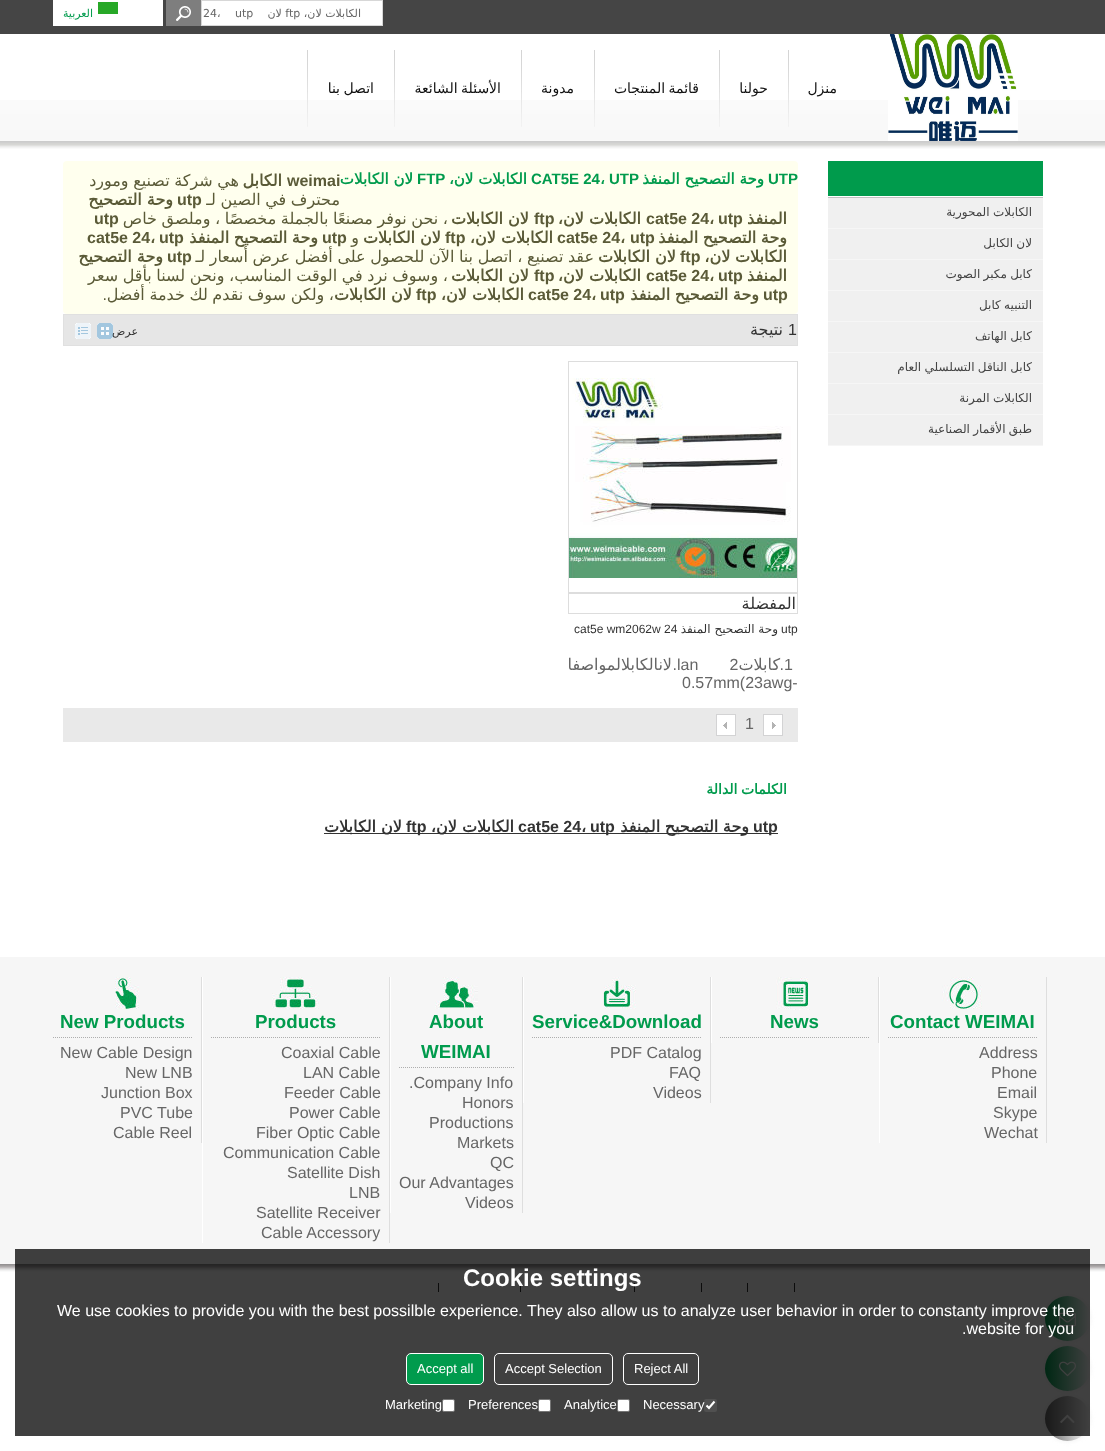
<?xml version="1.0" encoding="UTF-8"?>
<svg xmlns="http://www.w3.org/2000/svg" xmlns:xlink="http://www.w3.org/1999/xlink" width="1105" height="1451">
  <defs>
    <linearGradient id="g1" gradientUnits="userSpaceOnUse" x1="1045" y1="1319" x2="1090" y2="1319"><stop offset="0" stop-color="#009b4d" /><stop offset="1" stop-color="#ffffff" /></linearGradient>
    <linearGradient id="g2" gradientUnits="userSpaceOnUse" x1="1045" y1="1369" x2="1090" y2="1369"><stop offset="0" stop-color="#009b4d" /><stop offset="1" stop-color="#ffffff" /></linearGradient>
    <linearGradient id="g3" gradientUnits="userSpaceOnUse" x1="1045" y1="1419" x2="1090" y2="1419"><stop offset="0" stop-color="#666666" /><stop offset="1" stop-color="#ffffff" /></linearGradient>
    <clipPath id="clip1"><rect x="568" y="655" width="230" height="43" /></clipPath>
  </defs>
  <rect width="100%" height="100%" fill="#ffffff" />
  <rect width="1105" height="34" fill="#454545" />
  <rect x="201.5" y="0.5" width="181" height="25" fill="#ffffff" stroke="#d7d7d7" />
  <rect x="166" width="35" height="26" fill="#7e7e7e" />
  <image x="176" y="6" width="15" height="15" xlink:href="image1.png" />
  <rect x="53" width="110" height="26" fill="#ffffff" />
  <rect x="98" y="2" width="20" height="12" fill="#27a827" />
  <image x="0" y="100" width="1105" height="49" xlink:href="image2.png" />
  <image x="888" y="34" width="130" height="107" xlink:href="image3.png" />
  <image x="788" y="50" width="1" height="77" xlink:href="image4.png" />
  <image x="719" y="50" width="1" height="77" xlink:href="image4.png" />
  <image x="594" y="50" width="1" height="77" xlink:href="image4.png" />
  <image x="521" y="50" width="1" height="77" xlink:href="image4.png" />
  <image x="394" y="50" width="1" height="77" xlink:href="image4.png" />
  <image x="307" y="50" width="1" height="77" xlink:href="image4.png" />
  <rect x="828" y="161" width="215" height="35" fill="#009b4c" />
  <rect x="828" y="198" width="215" height="247" fill="#f0f0f0" />
  <rect x="828" y="197" width="215" height="1" fill="#c1c1c1" />
  <rect x="828" y="228" width="215" height="1" fill="#f6f6f6" />
  <rect x="828" y="259" width="215" height="1" fill="#f6f6f6" />
  <rect x="828" y="290" width="215" height="1" fill="#f6f6f6" />
  <rect x="828" y="321" width="215" height="1" fill="#f6f6f6" />
  <rect x="828" y="352" width="215" height="1" fill="#f6f6f6" />
  <rect x="828" y="383" width="215" height="1" fill="#f6f6f6" />
  <rect x="828" y="414" width="215" height="1" fill="#f6f6f6" />
  <rect x="828" y="445" width="215" height="1" fill="#f6f6f6" />
  <rect x="63" y="161" width="735" height="153" rx="4" fill="#ffffee" />
  <rect x="63.5" y="314.5" width="734" height="31" fill="#e6e6e6" stroke="#e0e0e0" />
  <image x="97" y="323" width="16" height="16" xlink:href="image5.png" />
  <image x="75" y="323" width="16" height="16" xlink:href="image6.png" />
  <rect x="568.5" y="361.5" width="229" height="231" fill="none" stroke="#dddddd" />
  <image x="569" y="378" width="228" height="200" xlink:href="image7.png" />
  <rect x="568.5" y="593.5" width="229" height="20" fill="none" stroke="#dddddd" />
  <rect x="63" y="708" width="735" height="34" fill="#e9e9e9" />
  <image x="763" y="714" width="20" height="22" xlink:href="image8.png" />
  <image x="716" y="714" width="20" height="22" xlink:href="image9.png" />
  <rect x="324" y="833" width="454" height="1" fill="#333333" />
  <rect y="957" width="1105" height="306" fill="#f6f6f6" />
  <image x="942" y="977" width="40" height="32" xlink:href="image10.png" />
  <rect x="1046" y="977" width="1" height="166" fill="#dedede" />
  <rect x="879" y="977" width="1" height="166" fill="#ffffff" />
  <path d="M 888 1037.5 h 150" fill="none" stroke="#aeaeae" stroke-dasharray="1 1" />
  <image x="776" y="977" width="34" height="33" xlink:href="image11.png" />
  <rect x="878" y="977" width="1" height="66" fill="#dedede" />
  <rect x="711" y="977" width="1" height="66" fill="#ffffff" />
  <path d="M 720 1037.5 h 150" fill="none" stroke="#aeaeae" stroke-dasharray="1 1" />
  <image x="603" y="977" width="33" height="32" xlink:href="image12.png" />
  <rect x="710" y="977" width="1" height="126" fill="#dedede" />
  <rect x="523" y="977" width="1" height="126" fill="#ffffff" />
  <path d="M 532 1037.5 h 170" fill="none" stroke="#aeaeae" stroke-dasharray="1 1" />
  <image x="435" y="977" width="43" height="32" xlink:href="image13.png" />
  <rect x="522" y="977" width="1" height="236" fill="#dedede" />
  <rect x="390" y="977" width="1" height="236" fill="#ffffff" />
  <path d="M 399 1067.5 h 115" fill="none" stroke="#aeaeae" stroke-dasharray="1 1" />
  <image x="272" y="977" width="47" height="32" xlink:href="image14.png" />
  <rect x="389" y="977" width="1" height="266" fill="#dedede" />
  <rect x="202" y="977" width="1" height="266" fill="#ffffff" />
  <path d="M 211 1037.5 h 170" fill="none" stroke="#aeaeae" stroke-dasharray="1 1" />
  <image x="115" y="977" width="24" height="32" xlink:href="image15.png" />
  <rect x="201" y="977" width="1" height="166" fill="#dedede" />
  <path d="M 53 1037.5 h 140" fill="none" stroke="#aeaeae" stroke-dasharray="1 1" />
  <image x="0" y="1263" width="1105" height="9" xlink:href="image16.png" />
  <rect x="794" y="1283" width="1" height="9" fill="#333333" />
  <rect x="747" y="1283" width="1" height="9" fill="#333333" />
  <rect x="701" y="1283" width="1" height="9" fill="#333333" />
  <rect x="634" y="1283" width="1" height="9" fill="#333333" />
  <rect x="520" y="1283" width="1" height="9" fill="#333333" />
  <rect x="438" y="1283" width="1" height="9" fill="#333333" />
  <rect x="1045" y="1296" width="45" height="45" rx="22.5" fill="#eeeeee" filter="blur(2.5px)" />
  <circle cx="1067.5" cy="1318.5" r="22.5" fill="url(#g1)" />
  <image x="1059" y="1312" width="17" height="15" xlink:href="image17.png" />
  <rect x="1045" y="1346" width="45" height="45" rx="22.5" fill="#eeeeee" filter="blur(2.5px)" />
  <circle cx="1067.5" cy="1368.5" r="22.5" fill="url(#g2)" />
  <image x="1059" y="1361" width="17" height="16" xlink:href="image18.png" />
  <rect x="1045" y="1396" width="45" height="45" rx="22.5" fill="#eeeeee" filter="blur(2.5px)" />
  <circle cx="1067.5" cy="1418.5" r="22.5" fill="url(#g3)" />
  <image x="1060" y="1414" width="15" height="9" xlink:href="image19.png" />
  <rect x="15" y="1249" width="1075" height="187" fill="#000000" fill-opacity="0.75" />
  <rect x="623.5" y="1353.5" width="75" height="31" rx="4.5" fill="none" stroke="#ffffff" />
  <rect x="494.5" y="1353.5" width="118" height="31" rx="4.5" fill="none" stroke="#ffffff" />
  <rect x="406.5" y="1353.5" width="77" height="31" rx="4.5" fill="#009b4d" stroke="#ffffff" />
  <rect x="704" y="1399" width="13" height="13" rx="2" fill="#505050" />
  <path d="M 706.5 1405.5 l 2.5 2.5 l 5.5 -6.5" fill="none" stroke="#ffffff" stroke-width="2.1" />
  <rect x="617.5" y="1399.5" width="12" height="12" rx="1.5" fill="#ffffff" stroke="#767676" />
  <rect x="538.5" y="1399.5" width="12" height="12" rx="1.5" fill="#ffffff" stroke="#767676" />
  <rect x="442.5" y="1399.5" width="12" height="12" rx="1.5" fill="#ffffff" stroke="#767676" />
  <text x="361" y="17" style="font-family: DejaVu Sans; font-size: 11px; direction: rtl; fill: #666666">الكابلات لان، ftp لان</text>
  <text x="203" y="17" word-spacing="11" style="font-family: DejaVu Sans; font-size: 11px; fill: #666666">24، utp</text>
  <text x="93" y="17" style="font-family: DejaVu Sans; font-size: 11px; direction: rtl; fill: #009b4d">العربية</text>
  <text x="837" y="93" style="font-family: DejaVu Sans; font-size: 14px; direction: rtl; fill: #111111">منزل</text>
  <text x="768" y="93" style="font-family: DejaVu Sans; font-size: 14px; direction: rtl; fill: #111111">حولنا</text>
  <text x="699" y="93" word-spacing="-1" style="font-family: DejaVu Sans; font-size: 14px; direction: rtl; fill: #111111">قائمة المنتجات</text>
  <text x="574" y="93" style="font-family: DejaVu Sans; font-size: 14px; direction: rtl; fill: #111111">مدونة</text>
  <text x="501" y="93" word-spacing="-1" style="font-family: DejaVu Sans; font-size: 14px; direction: rtl; fill: #111111">الأسئلة الشائعة</text>
  <text x="374" y="93" word-spacing="-1" style="font-family: DejaVu Sans; font-size: 14px; direction: rtl; fill: #111111">اتصل بنا</text>
  <text x="1032" y="216" word-spacing="-0.5" style="font-family: DejaVu Sans; font-size: 12px; direction: rtl; fill: #444444">الكابلات المحورية</text>
  <text x="1032" y="247" word-spacing="-0.5" style="font-family: DejaVu Sans; font-size: 12px; direction: rtl; fill: #444444">لان الكابل</text>
  <text x="1032" y="278" word-spacing="-0.5" style="font-family: DejaVu Sans; font-size: 12px; direction: rtl; fill: #444444">كابل مكبر الصوت</text>
  <text x="1032" y="309" word-spacing="-0.5" style="font-family: DejaVu Sans; font-size: 12px; direction: rtl; fill: #444444">التنبيه كابل</text>
  <text x="1032" y="340" word-spacing="-0.5" style="font-family: DejaVu Sans; font-size: 12px; direction: rtl; fill: #444444">كابل الهاتف</text>
  <text x="1032" y="371" word-spacing="-0.5" style="font-family: DejaVu Sans; font-size: 12px; direction: rtl; fill: #444444">كابل الناقل التسلسلي العام</text>
  <text x="1032" y="402" word-spacing="-0.5" style="font-family: DejaVu Sans; font-size: 12px; direction: rtl; fill: #444444">الكابلات المرنة</text>
  <text x="1032" y="433" word-spacing="-0.5" style="font-family: DejaVu Sans; font-size: 12px; direction: rtl; fill: #444444">طبق الأقمار الصناعية</text>
  <text x="768" y="184" style="font-family: Liberation Sans; font-size: 15px; font-weight: bold; fill: #009b4d">UTP</text>
  <text x="764" y="184" style="font-family: DejaVu Sans; font-size: 15px; font-weight: bold; direction: rtl; fill: #009b4d">وحة التصحيح المنفذ</text>
  <text x="609" y="184" style="font-family: Liberation Sans; font-size: 15px; font-weight: bold; fill: #009b4d">UTP</text>
  <text x="600" y="184" style="font-family: DejaVu Sans; font-size: 15px; font-weight: bold; fill: #009b4d">،</text>
  <text x="531" y="184" style="font-family: Liberation Sans; font-size: 15px; font-weight: bold; fill: #009b4d">CAT5E 24</text>
  <text x="527" y="184" style="font-family: DejaVu Sans; font-size: 15px; font-weight: bold; direction: rtl; fill: #009b4d">الكابلات لان،</text>
  <text x="417" y="184" style="font-family: Liberation Sans; font-size: 15px; font-weight: bold; fill: #009b4d">FTP</text>
  <text x="413" y="184" style="font-family: DejaVu Sans; font-size: 15px; font-weight: bold; direction: rtl; fill: #009b4d">لان الكابلات</text>
  <text x="287" y="186" style="font-family: Liberation Sans; font-size: 16px; font-weight: bold; fill: #5a5a37">weimai</text>
  <text x="282" y="186" style="font-family: DejaVu Sans; font-size: 16px; font-weight: bold; direction: rtl; fill: #5a5a37">الكابل</text>
  <text x="239" y="186" word-spacing="-0.5" style="font-family: DejaVu Sans; font-size: 16px; direction: rtl; fill: #5a5a37">هي شركة تصنيع ومورد</text>
  <text x="340" y="205" word-spacing="-0.5" style="font-family: DejaVu Sans; font-size: 16px; direction: rtl; fill: #5a5a37">محترف في الصين لـ</text>
  <text x="177" y="205" style="font-family: Liberation Sans; font-size: 16px; font-weight: bold; fill: #5a5a37">utp</text>
  <text x="173" y="205" style="font-family: DejaVu Sans; font-size: 16px; font-weight: bold; direction: rtl; fill: #5a5a37">وحة التصحيح</text>
  <text x="787" y="224" style="font-family: DejaVu Sans; font-size: 16px; font-weight: bold; direction: rtl; fill: #5a5a37">المنفذ</text>
  <text x="718" y="224" style="font-family: Liberation Sans; font-size: 16px; font-weight: bold; fill: #5a5a37">utp</text>
  <text x="709" y="224" style="font-family: DejaVu Sans; font-size: 16px; font-weight: bold; fill: #5a5a37">،</text>
  <text x="646" y="224" style="font-family: Liberation Sans; font-size: 16px; font-weight: bold; fill: #5a5a37">cat5e 24</text>
  <text x="641" y="224" style="font-family: DejaVu Sans; font-size: 16px; font-weight: bold; direction: rtl; fill: #5a5a37">الكابلات لان،</text>
  <text x="534" y="224" style="font-family: Liberation Sans; font-size: 16px; font-weight: bold; fill: #5a5a37">ftp</text>
  <text x="529" y="224" style="font-family: DejaVu Sans; font-size: 16px; font-weight: bold; direction: rtl; fill: #5a5a37">لان الكابلات</text>
  <text x="448" y="224" word-spacing="-0.5" style="font-family: DejaVu Sans; font-size: 16px; direction: rtl; fill: #5a5a37">، نحن نوفر مصنعًا بالجملة مخصصًا ، وملصق خاص</text>
  <text x="94" y="224" style="font-family: Liberation Sans; font-size: 16px; font-weight: bold; fill: #5a5a37">utp</text>
  <text x="787" y="243" word-spacing="-0.5" style="font-family: DejaVu Sans; font-size: 16px; font-weight: bold; direction: rtl; fill: #5a5a37">وحة التصحيح المنفذ</text>
  <text x="630" y="243" style="font-family: Liberation Sans; font-size: 16px; font-weight: bold; fill: #5a5a37">utp</text>
  <text x="620" y="243" style="font-family: DejaVu Sans; font-size: 16px; font-weight: bold; fill: #5a5a37">،</text>
  <text x="557" y="243" style="font-family: Liberation Sans; font-size: 16px; font-weight: bold; fill: #5a5a37">cat5e 24</text>
  <text x="553" y="243" style="font-family: DejaVu Sans; font-size: 16px; font-weight: bold; direction: rtl; fill: #5a5a37">الكابلات لان،</text>
  <text x="445" y="243" style="font-family: Liberation Sans; font-size: 16px; font-weight: bold; fill: #5a5a37">ftp</text>
  <text x="441" y="243" style="font-family: DejaVu Sans; font-size: 16px; font-weight: bold; direction: rtl; fill: #5a5a37">لان الكابلات</text>
  <text x="359" y="243" style="font-family: DejaVu Sans; font-size: 16px; direction: rtl; fill: #5a5a37">و</text>
  <text x="322" y="243" style="font-family: Liberation Sans; font-size: 16px; font-weight: bold; fill: #5a5a37">utp</text>
  <text x="318" y="243" word-spacing="-0.5" style="font-family: DejaVu Sans; font-size: 16px; font-weight: bold; direction: rtl; fill: #5a5a37">وحة التصحيح المنفذ</text>
  <text x="159" y="243" style="font-family: Liberation Sans; font-size: 16px; font-weight: bold; fill: #5a5a37">utp</text>
  <text x="150" y="243" style="font-family: DejaVu Sans; font-size: 16px; font-weight: bold; fill: #5a5a37">،</text>
  <text x="87" y="243" style="font-family: Liberation Sans; font-size: 16px; font-weight: bold; fill: #5a5a37">cat5e 24</text>
  <text x="787" y="262" word-spacing="-0.5" style="font-family: DejaVu Sans; font-size: 16px; font-weight: bold; direction: rtl; fill: #5a5a37">الكابلات لان،</text>
  <text x="680" y="262" style="font-family: Liberation Sans; font-size: 16px; font-weight: bold; fill: #5a5a37">ftp</text>
  <text x="676" y="262" style="font-family: DejaVu Sans; font-size: 16px; font-weight: bold; direction: rtl; fill: #5a5a37">لان الكابلات</text>
  <text x="594" y="262" word-spacing="-0.5" style="font-family: DejaVu Sans; font-size: 16px; direction: rtl; fill: #5a5a37">عقد تصنيع ، اتصل بنا الآن للحصول على أفضل عرض أسعار لـ</text>
  <text x="167" y="262" style="font-family: Liberation Sans; font-size: 16px; font-weight: bold; fill: #5a5a37">utp</text>
  <text x="163" y="262" style="font-family: DejaVu Sans; font-size: 16px; font-weight: bold; direction: rtl; fill: #5a5a37">وحة التصحيح</text>
  <text x="787" y="281" style="font-family: DejaVu Sans; font-size: 16px; font-weight: bold; direction: rtl; fill: #5a5a37">المنفذ</text>
  <text x="718" y="281" style="font-family: Liberation Sans; font-size: 16px; font-weight: bold; fill: #5a5a37">utp</text>
  <text x="709" y="281" style="font-family: DejaVu Sans; font-size: 16px; font-weight: bold; fill: #5a5a37">،</text>
  <text x="646" y="281" style="font-family: Liberation Sans; font-size: 16px; font-weight: bold; fill: #5a5a37">cat5e 24</text>
  <text x="641" y="281" style="font-family: DejaVu Sans; font-size: 16px; font-weight: bold; direction: rtl; fill: #5a5a37">الكابلات لان،</text>
  <text x="534" y="281" style="font-family: Liberation Sans; font-size: 16px; font-weight: bold; fill: #5a5a37">ftp</text>
  <text x="529" y="281" style="font-family: DejaVu Sans; font-size: 16px; font-weight: bold; direction: rtl; fill: #5a5a37">لان الكابلات</text>
  <text x="448" y="281" word-spacing="-0.5" style="font-family: DejaVu Sans; font-size: 16px; direction: rtl; fill: #5a5a37">، وسوف نرد في الوقت المناسب، ونحن لسنا بأقل سعر</text>
  <text x="763" y="300" style="font-family: Liberation Sans; font-size: 16px; font-weight: bold; fill: #5a5a37">utp</text>
  <text x="759" y="300" word-spacing="-0.5" style="font-family: DejaVu Sans; font-size: 16px; font-weight: bold; direction: rtl; fill: #5a5a37">وحة التصحيح المنفذ</text>
  <text x="600" y="300" style="font-family: Liberation Sans; font-size: 16px; font-weight: bold; fill: #5a5a37">utp</text>
  <text x="591" y="300" style="font-family: DejaVu Sans; font-size: 16px; font-weight: bold; fill: #5a5a37">،</text>
  <text x="528" y="300" style="font-family: Liberation Sans; font-size: 16px; font-weight: bold; fill: #5a5a37">cat5e 24</text>
  <text x="524" y="300" style="font-family: DejaVu Sans; font-size: 16px; font-weight: bold; direction: rtl; fill: #5a5a37">الكابلات لان،</text>
  <text x="416" y="300" style="font-family: Liberation Sans; font-size: 16px; font-weight: bold; fill: #5a5a37">ftp</text>
  <text x="412" y="300" style="font-family: DejaVu Sans; font-size: 16px; font-weight: bold; direction: rtl; fill: #5a5a37">لان الكابلات</text>
  <text x="334" y="300" word-spacing="-0.5" style="font-family: DejaVu Sans; font-size: 16px; direction: rtl; fill: #5a5a37">، ولكن سوف نقدم لك خدمة أفضل</text>
  <text x="107" y="300" style="font-family: Liberation Sans; font-size: 16px; direction: rtl; fill: #5a5a37">.</text>
  <text x="788" y="335" style="font-family: Liberation Sans; font-size: 16px; fill: #333333">1</text>
  <text x="783" y="335" style="font-family: DejaVu Sans; font-size: 16px; direction: rtl; fill: #333333">نتيجة</text>
  <text x="138" y="335" style="font-family: DejaVu Sans; font-size: 11px; direction: rtl; fill: #333333">عرض</text>
  <text x="796" y="609" style="font-family: DejaVu Sans; font-size: 16px; direction: rtl; fill: #333333">المفضلة</text>
  <text x="781" y="633" style="font-family: Liberation Sans; font-size: 12px; fill: #333333">utp</text>
  <text x="778" y="633" style="font-family: DejaVu Sans; font-size: 12px; direction: rtl; fill: #333333">وحة التصحيح المنفذ</text>
  <text x="574" y="633" style="font-family: Liberation Sans; font-size: 12px; fill: #333333">cat5e wm2062w 24</text>
  <text x="784" y="670" style="font-family: Liberation Sans; font-size: 16px; fill: #666666">1</text>
  <text x="784" y="670" style="font-family: Liberation Sans; font-size: 16px; direction: rtl; fill: #666666">.</text>
  <text x="780" y="670" style="font-family: DejaVu Sans; font-size: 16px; direction: rtl; fill: #666666">كابلات</text>
  <text x="677" y="670" style="font-family: Liberation Sans; font-size: 16px; fill: #666666" xml:space="preserve">lan       2</text>
  <text x="677" y="670" style="font-family: Liberation Sans; font-size: 16px; direction: rtl; fill: #666666">.</text>
  <g clip-path="url(#clip1)">
    <text x="672" y="670" style="font-family: DejaVu Sans; font-size: 16px; direction: rtl; fill: #666666">لانالكابلالمواصفات</text>
  </g>
  <text x="682" y="688" style="font-family: Liberation Sans; font-size: 16px; fill: #666666">0.57mm(23awg-</text>
  <text x="745" y="729" style="font-family: Liberation Sans; font-size: 16px; fill: #666666">1</text>
  <text x="787" y="794" word-spacing="-1" style="font-family: DejaVu Sans; font-size: 14px; font-weight: bold; direction: rtl; fill: #009b4d">الكلمات الدالة</text>
  <text x="753" y="832" style="font-family: Liberation Sans; font-size: 16px; font-weight: bold; fill: #333333">utp</text>
  <text x="749" y="832" word-spacing="-0.5" style="font-family: DejaVu Sans; font-size: 16px; font-weight: bold; direction: rtl; fill: #333333">وحة التصحيح المنفذ</text>
  <text x="590" y="832" style="font-family: Liberation Sans; font-size: 16px; font-weight: bold; fill: #333333">utp</text>
  <text x="581" y="832" style="font-family: DejaVu Sans; font-size: 16px; font-weight: bold; fill: #333333">،</text>
  <text x="518" y="832" style="font-family: Liberation Sans; font-size: 16px; font-weight: bold; fill: #333333">cat5e 24</text>
  <text x="514" y="832" style="font-family: DejaVu Sans; font-size: 16px; font-weight: bold; direction: rtl; fill: #333333">الكابلات لان،</text>
  <text x="406" y="832" style="font-family: Liberation Sans; font-size: 16px; font-weight: bold; fill: #333333">ftp</text>
  <text x="402" y="832" style="font-family: DejaVu Sans; font-size: 16px; font-weight: bold; direction: rtl; fill: #333333">لان الكابلات</text>
  <text x="890" y="1028" style="font-family: Liberation Sans; font-size: 18.75px; font-weight: bold; fill: #009b4d">Contact WEIMAI</text>
  <text x="979" y="1058" style="font-family: Liberation Sans; font-size: 16px; fill: #666666">Address</text>
  <text x="991" y="1078" style="font-family: Liberation Sans; font-size: 16px; fill: #666666">Phone</text>
  <text x="997" y="1098" style="font-family: Liberation Sans; font-size: 16px; fill: #666666">Email</text>
  <text x="993" y="1118" style="font-family: Liberation Sans; font-size: 16px; fill: #666666">Skype</text>
  <text x="984" y="1138" style="font-family: Liberation Sans; font-size: 16px; fill: #666666">Wechat</text>
  <text x="770" y="1028" style="font-family: Liberation Sans; font-size: 18.75px; font-weight: bold; fill: #009b4d">News</text>
  <text x="532" y="1028" style="font-family: Liberation Sans; font-size: 18.75px; font-weight: bold; fill: #009b4d">Service&amp;Download</text>
  <text x="610" y="1058" style="font-family: Liberation Sans; font-size: 16px; fill: #666666">PDF Catalog</text>
  <text x="669" y="1078" style="font-family: Liberation Sans; font-size: 16px; fill: #666666">FAQ</text>
  <text x="653" y="1098" style="font-family: Liberation Sans; font-size: 16px; fill: #666666">Videos</text>
  <text x="429" y="1028" style="font-family: Liberation Sans; font-size: 18.75px; font-weight: bold; fill: #009b4d">About</text>
  <text x="421" y="1058" style="font-family: Liberation Sans; font-size: 18.75px; font-weight: bold; fill: #009b4d">WEIMAI</text>
  <text x="409" y="1088" style="font-family: Liberation Sans; font-size: 16px; fill: #666666">.Company Info</text>
  <text x="462" y="1108" style="font-family: Liberation Sans; font-size: 16px; fill: #666666">Honors</text>
  <text x="429" y="1128" style="font-family: Liberation Sans; font-size: 16px; fill: #666666">Productions</text>
  <text x="457" y="1148" style="font-family: Liberation Sans; font-size: 16px; fill: #666666">Markets</text>
  <text x="490" y="1168" style="font-family: Liberation Sans; font-size: 16px; fill: #666666">QC</text>
  <text x="399" y="1188" style="font-family: Liberation Sans; font-size: 16px; fill: #666666">Our Advantages</text>
  <text x="465" y="1208" style="font-family: Liberation Sans; font-size: 16px; fill: #666666">Videos</text>
  <text x="255" y="1028" style="font-family: Liberation Sans; font-size: 18.75px; font-weight: bold; fill: #009b4d">Products</text>
  <text x="281" y="1058" style="font-family: Liberation Sans; font-size: 16px; fill: #666666">Coaxial Cable</text>
  <text x="303" y="1078" style="font-family: Liberation Sans; font-size: 16px; fill: #666666">LAN Cable</text>
  <text x="284" y="1098" style="font-family: Liberation Sans; font-size: 16px; fill: #666666">Feeder Cable</text>
  <text x="289" y="1118" style="font-family: Liberation Sans; font-size: 16px; fill: #666666">Power Cable</text>
  <text x="256" y="1138" style="font-family: Liberation Sans; font-size: 16px; fill: #666666">Fiber Optic Cable</text>
  <text x="223" y="1158" style="font-family: Liberation Sans; font-size: 16px; fill: #666666">Communication Cable</text>
  <text x="287" y="1178" style="font-family: Liberation Sans; font-size: 16px; fill: #666666">Satellite Dish</text>
  <text x="349" y="1198" style="font-family: Liberation Sans; font-size: 16px; fill: #666666">LNB</text>
  <text x="256" y="1218" style="font-family: Liberation Sans; font-size: 16px; fill: #666666">Satellite Receiver</text>
  <text x="261" y="1238" style="font-family: Liberation Sans; font-size: 16px; fill: #666666">Cable Accessory</text>
  <text x="60" y="1028" style="font-family: Liberation Sans; font-size: 18.75px; font-weight: bold; fill: #009b4d">New Products</text>
  <text x="60" y="1058" style="font-family: Liberation Sans; font-size: 16px; fill: #666666">New Cable Design</text>
  <text x="125" y="1078" style="font-family: Liberation Sans; font-size: 16px; fill: #666666">New LNB</text>
  <text x="101" y="1098" style="font-family: Liberation Sans; font-size: 16px; fill: #666666">Junction Box</text>
  <text x="120" y="1118" style="font-family: Liberation Sans; font-size: 16px; fill: #666666">PVC Tube</text>
  <text x="113" y="1138" style="font-family: Liberation Sans; font-size: 16px; fill: #666666">Cable Reel</text>
  <text x="463" y="1286" style="font-family: Liberation Sans; font-size: 24px; font-weight: bold; fill: #ffffff">Cookie settings</text>
  <text x="57" y="1316" style="font-family: Liberation Sans; font-size: 16px; fill: #ffffff">We use cookies to provide you with the best possilble experience. They also allow us to analyze user behavior in order to constanty improve the</text>
  <text x="962" y="1334" style="font-family: Liberation Sans; font-size: 16px; fill: #ffffff">.website for you</text>
  <text x="634" y="1373" style="font-family: Liberation Sans; font-size: 13px; fill: #ffffff">Reject All</text>
  <text x="505" y="1373" style="font-family: Liberation Sans; font-size: 13px; fill: #ffffff">Accept Selection</text>
  <text x="417" y="1373" style="font-family: Liberation Sans; font-size: 13px; fill: #ffffff">Accept all</text>
  <text x="643" y="1409" style="font-family: Liberation Sans; font-size: 13px; fill: #ffffff">Necessary</text>
  <text x="564" y="1409" style="font-family: Liberation Sans; font-size: 13px; fill: #ffffff">Analytice</text>
  <text x="468" y="1409" style="font-family: Liberation Sans; font-size: 13px; fill: #ffffff">Preferences</text>
  <text x="385" y="1409" style="font-family: Liberation Sans; font-size: 13px; fill: #ffffff">Marketing</text>
</svg>
